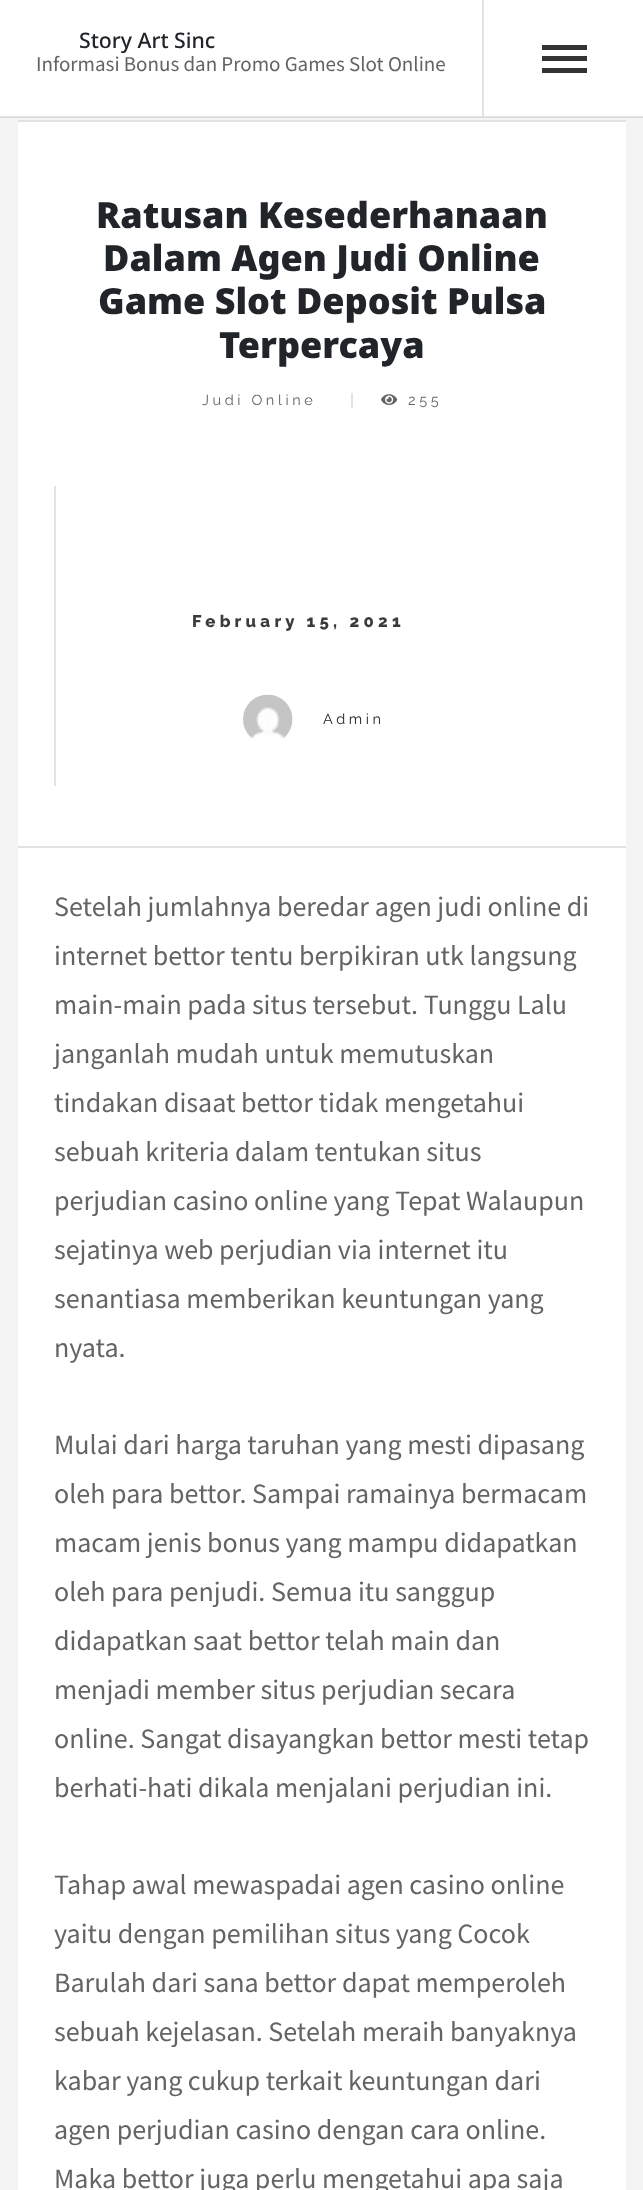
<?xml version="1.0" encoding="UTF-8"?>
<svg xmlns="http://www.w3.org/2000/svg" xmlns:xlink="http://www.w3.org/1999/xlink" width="643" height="2190">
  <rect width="100%" height="100%" fill="#f4f4f4" />
  <rect y="117" width="643" height="1" fill="#dbdbdb" />
  <rect width="643" height="116" fill="#ffffff" />
  <rect y="116" width="643" height="1" fill="#e3e3e3" />
  <rect x="482" width="2" height="116" fill="#e3e3e3" />
  <rect x="542" y="45" width="45" height="5" fill="#333333" />
  <rect x="542" y="56" width="45" height="5" fill="#333333" />
  <rect x="542" y="68" width="45" height="5" fill="#333333" />
  <rect x="18" y="122" width="608" height="2068" fill="#ffffff" />
  <rect x="18" y="120" width="608" height="2" fill="#e3e3e3" />
  <rect x="18" y="846" width="608" height="2" fill="#e3e3e3" />
  <rect x="351" y="393" width="2" height="15" fill="#e3e3e3" />
  <image x="381" y="394" width="17" height="11" xlink:href="image1.png" />
  <rect x="54" y="486" width="2" height="300" fill="#e3e3e3" />
  <image x="243" y="694" width="50" height="45" xlink:href="image2.png" />
  <text x="79" y="48" style="font-family: Noto Sans; font-size: 21.25px; font-weight: 500; fill: #212529">Story Art Sinc</text>
  <text x="36" y="71" style="font-family: Source Sans Pro; font-size: 21px; fill: #646464">Informasi Bonus dan Promo Games Slot Online</text>
  <text x="96" y="228" style="font-family: Noto Sans; font-size: 36px; font-weight: 900; fill: #212529">Ratusan Kesederhanaan</text>
  <text x="103" y="271" style="font-family: Noto Sans; font-size: 36px; font-weight: 900; fill: #212529">Dalam Agen Judi Online</text>
  <text x="98" y="314" style="font-family: Noto Sans; font-size: 36px; font-weight: 900; fill: #212529">Game Slot Deposit Pulsa</text>
  <text x="219" y="358" style="font-family: Noto Sans; font-size: 36px; font-weight: 900; fill: #212529">Terpercaya</text>
  <text x="202" y="405" style="font-family: Raleway; font-size: 14.5px; letter-spacing: 3.6px; fill: #646464">Judi Online</text>
  <text x="408" y="405" style="font-family: Raleway; font-size: 14.5px; letter-spacing: 3.6px; fill: #646464">255</text>
  <text x="192" y="627" style="font-family: Raleway; font-size: 16.75px; font-weight: 800; letter-spacing: 4.25px; fill: #3c3b3b">February 15, 2021</text>
  <text x="323" y="724" style="font-family: Raleway; font-size: 14.5px; letter-spacing: 3.6px; fill: #212529">Admin</text>
  <text x="54" y="916" style="font-family: Source Sans Pro; font-size: 28px; fill: #646464">Setelah jumlahnya beredar agen judi online di</text>
  <text x="54" y="965" style="font-family: Source Sans Pro; font-size: 28px; fill: #646464">internet bettor tentu berpikiran utk langsung</text>
  <text x="54" y="1014" style="font-family: Source Sans Pro; font-size: 28px; fill: #646464">main-main pada situs tersebut. Tunggu Lalu</text>
  <text x="54" y="1063" style="font-family: Source Sans Pro; font-size: 28px; fill: #646464">janganlah mudah untuk memutuskan</text>
  <text x="54" y="1112" style="font-family: Source Sans Pro; font-size: 28px; fill: #646464">tindakan disaat bettor tidak mengetahui</text>
  <text x="54" y="1161" style="font-family: Source Sans Pro; font-size: 28px; fill: #646464">sebuah kriteria dalam tentukan situs</text>
  <text x="54" y="1210" style="font-family: Source Sans Pro; font-size: 28px; fill: #646464">perjudian casino online yang Tepat Walaupun</text>
  <text x="54" y="1259" style="font-family: Source Sans Pro; font-size: 28px; fill: #646464">sejatinya web perjudian via internet itu</text>
  <text x="54" y="1308" style="font-family: Source Sans Pro; font-size: 28px; fill: #646464">senantiasa memberikan keuntungan yang</text>
  <text x="54" y="1357" style="font-family: Source Sans Pro; font-size: 28px; fill: #646464">nyata.</text>
  <text x="54" y="1454" style="font-family: Source Sans Pro; font-size: 28px; fill: #646464">Mulai dari harga taruhan yang mesti dipasang</text>
  <text x="54" y="1503" style="font-family: Source Sans Pro; font-size: 28px; fill: #646464">oleh para bettor. Sampai ramainya bermacam</text>
  <text x="54" y="1552" style="font-family: Source Sans Pro; font-size: 28px; fill: #646464">macam jenis bonus yang mampu didapatkan</text>
  <text x="54" y="1601" style="font-family: Source Sans Pro; font-size: 28px; fill: #646464">oleh para penjudi. Semua itu sanggup</text>
  <text x="54" y="1650" style="font-family: Source Sans Pro; font-size: 28px; fill: #646464">didapatkan saat bettor telah main dan</text>
  <text x="54" y="1699" style="font-family: Source Sans Pro; font-size: 28px; fill: #646464">menjadi member situs perjudian secara</text>
  <text x="54" y="1748" style="font-family: Source Sans Pro; font-size: 28px; fill: #646464">online. Sangat disayangkan bettor mesti tetap</text>
  <text x="54" y="1797" style="font-family: Source Sans Pro; font-size: 28px; fill: #646464">berhati-hati dikala menjalani perjudian ini.</text>
  <text x="54" y="1894" style="font-family: Source Sans Pro; font-size: 28px; fill: #646464">Tahap awal mewaspadai agen casino online</text>
  <text x="54" y="1943" style="font-family: Source Sans Pro; font-size: 28px; fill: #646464">yaitu dengan pemilihan situs yang Cocok</text>
  <text x="54" y="1992" style="font-family: Source Sans Pro; font-size: 28px; fill: #646464">Barulah dari sana bettor dapat memperoleh</text>
  <text x="54" y="2041" style="font-family: Source Sans Pro; font-size: 28px; fill: #646464">sebuah kejelasan. Setelah meraih banyaknya</text>
  <text x="54" y="2090" style="font-family: Source Sans Pro; font-size: 28px; fill: #646464">kabar yang cukup terkait keuntungan dari</text>
  <text x="54" y="2139" style="font-family: Source Sans Pro; font-size: 28px; fill: #646464">agen perjudian casino dengan cara online.</text>
  <text x="54" y="2188" style="font-family: Source Sans Pro; font-size: 28px; fill: #646464">Maka bettor juga perlu mengetahui apa saja</text>
</svg>
